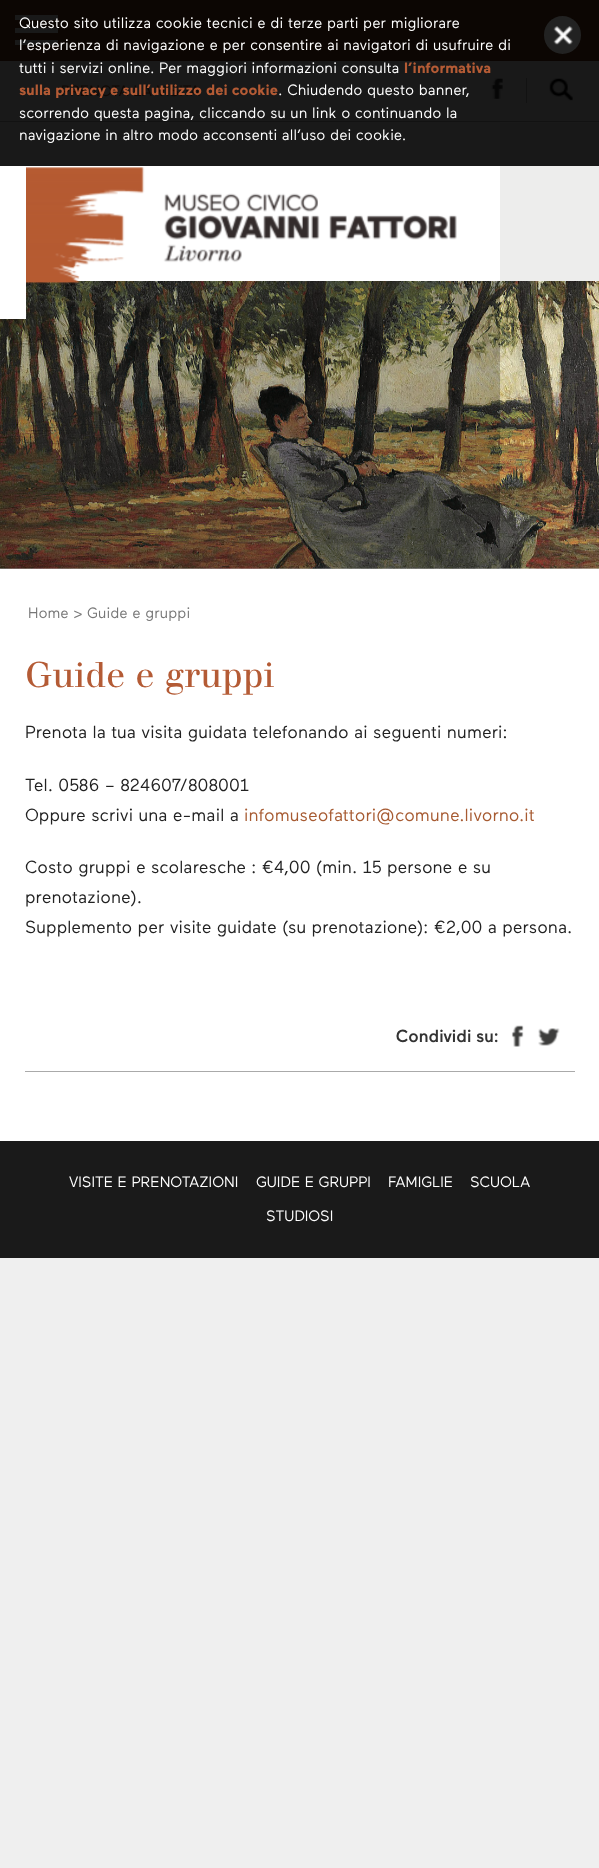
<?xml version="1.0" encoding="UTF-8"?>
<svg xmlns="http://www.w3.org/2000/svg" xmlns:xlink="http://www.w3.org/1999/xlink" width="599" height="1868">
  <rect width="100%" height="100%" fill="#efefef" />
  <rect width="599" height="60" fill="#0c0603" />
  <rect y="60" width="599" height="1" fill="#0b0502" />
  <rect x="15" y="15" width="43" height="5" fill="#191919" />
  <rect x="15" y="28" width="43" height="5" fill="#191919" />
  <rect x="15" y="40" width="43" height="5" fill="#191919" />
  <rect x="544" y="16" width="37" height="38" rx="18.5" fill="#222222" />
  <image x="553" y="26" width="20" height="19" xlink:href="image1.png" />
  <rect y="568" width="599" height="573" fill="#ffffff" />
  <rect y="61" width="599" height="62" fill="#191919" />
  <rect x="526" y="78" width="1" height="25" fill="#121212" />
  <image x="491" y="78" width="12" height="21" xlink:href="image2.png" />
  <image x="549" y="78" width="24" height="23" xlink:href="image3.png" />
  <rect y="121" width="599" height="1" fill="#121212" />
  <rect x="500" y="166" width="99" height="115" fill="#ededec" />
  <rect x="500" y="123" width="99" height="43" fill="#181818" />
  <rect x="26" y="166" width="474" height="115" fill="#ffffff" />
  <rect y="123" width="500" height="43" fill="#191919" />
  <image x="0" y="281" width="599" height="288" xlink:href="image5.png" />
  <rect y="281" width="500" height="288" fill="#000000" fill-opacity="0.25" />
  <rect y="166" width="26" height="153" fill="#ffffff" />
  <image x="26" y="167" width="431" height="117" xlink:href="image4.png" />
  <rect x="25" y="1071" width="550" height="1" fill="#aaaaaa" />
  <image x="511" y="1025" width="13" height="22" xlink:href="image6.png" />
  <image x="538" y="1028" width="22" height="18" xlink:href="image7.png" />
  <rect y="1141" width="599" height="117" fill="#1a1a1a" />
  <text x="19" y="28" style="font-family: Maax; font-size: 15px; fill: #ffffff">Questo sito utilizza cookie tecnici e di terze parti per migliorare</text>
  <text x="19" y="50" style="font-family: Maax; font-size: 15px; fill: #ffffff">l’esperienza di navigazione e per consentire ai navigatori di usufruire di</text>
  <text x="19" y="73" style="font-family: Maax; font-size: 15px; fill: #ffffff">tutti i servizi online. Per maggiori informazioni consulta</text>
  <text x="404" y="73" style="font-family: Maax; font-size: 15px; font-weight: bold; fill: #b45b35">l’informativa</text>
  <text x="278" y="95" style="font-family: Maax; font-size: 15px; fill: #ffffff">. Chiudendo questo banner,</text>
  <text x="19" y="118" style="font-family: Maax; font-size: 15px; fill: #ffffff">scorrendo questa pagina, cliccando su un link o continuando la</text>
  <text x="19" y="140" style="font-family: Maax; font-size: 15px; fill: #ffffff">navigazione in altro modo acconsenti all’uso dei cookie.</text>
  <text x="61" y="96" style="font-family: Maax; font-size: 15px; fill: #110905">PRENOTA LA VISITA</text>
  <text x="19" y="95" style="font-family: Maax; font-size: 15px; font-weight: bold; fill: #b45b35">sulla privacy e sull’utilizzo dei cookie</text>
  <text x="28" y="618" style="font-family: Maax; font-size: 15px; fill: #777777">Home &gt; Guide e gruppi</text>
  <text x="25" y="687" style="font-family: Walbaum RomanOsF; font-size: 35px; fill: #b45b35">Guide e gruppi</text>
  <text x="25" y="738" style="font-family: Maax; font-size: 17.5px; fill: #222222">Prenota la tua visita guidata telefonando ai seguenti numeri:</text>
  <text x="25" y="791" style="font-family: Maax; font-size: 17.5px; fill: #222222">Tel. 0586 – 824607/808001</text>
  <text x="25" y="821" style="font-family: Maax; font-size: 17.5px; fill: #222222">Oppure scrivi una e-mail a</text>
  <text x="244" y="821" style="font-family: Maax; font-size: 17.5px; fill: #a75b32">infomuseofattori@comune.livorno.it</text>
  <text x="25" y="873" style="font-family: Maax; font-size: 17.5px; fill: #222222">Costo gruppi e scolaresche : €4,00 (min. 15 persone e su</text>
  <text x="25" y="903" style="font-family: Maax; font-size: 17.5px; fill: #222222">prenotazione).</text>
  <text x="25" y="933" style="font-family: Maax; font-size: 17.5px; fill: #222222">Supplemento per visite guidate (su prenotazione): €2,00 a persona.</text>
  <text x="396" y="1042" style="font-family: Maax; font-size: 17.5px; font-weight: 500; fill: #333333">Condividi su:</text>
  <text x="69" y="1187" style="font-family: Maax; font-size: 15px; fill: #ffffff">VISITE E PRENOTAZIONI</text>
  <text x="256" y="1187" style="font-family: Maax; font-size: 15px; fill: #ffffff">GUIDE E GRUPPI</text>
  <text x="388" y="1187" style="font-family: Maax; font-size: 15px; fill: #ffffff">FAMIGLIE</text>
  <text x="470" y="1187" style="font-family: Maax; font-size: 15px; fill: #ffffff">SCUOLA</text>
  <text x="266" y="1221" style="font-family: Maax; font-size: 15px; fill: #ffffff">STUDIOSI</text>
</svg>
